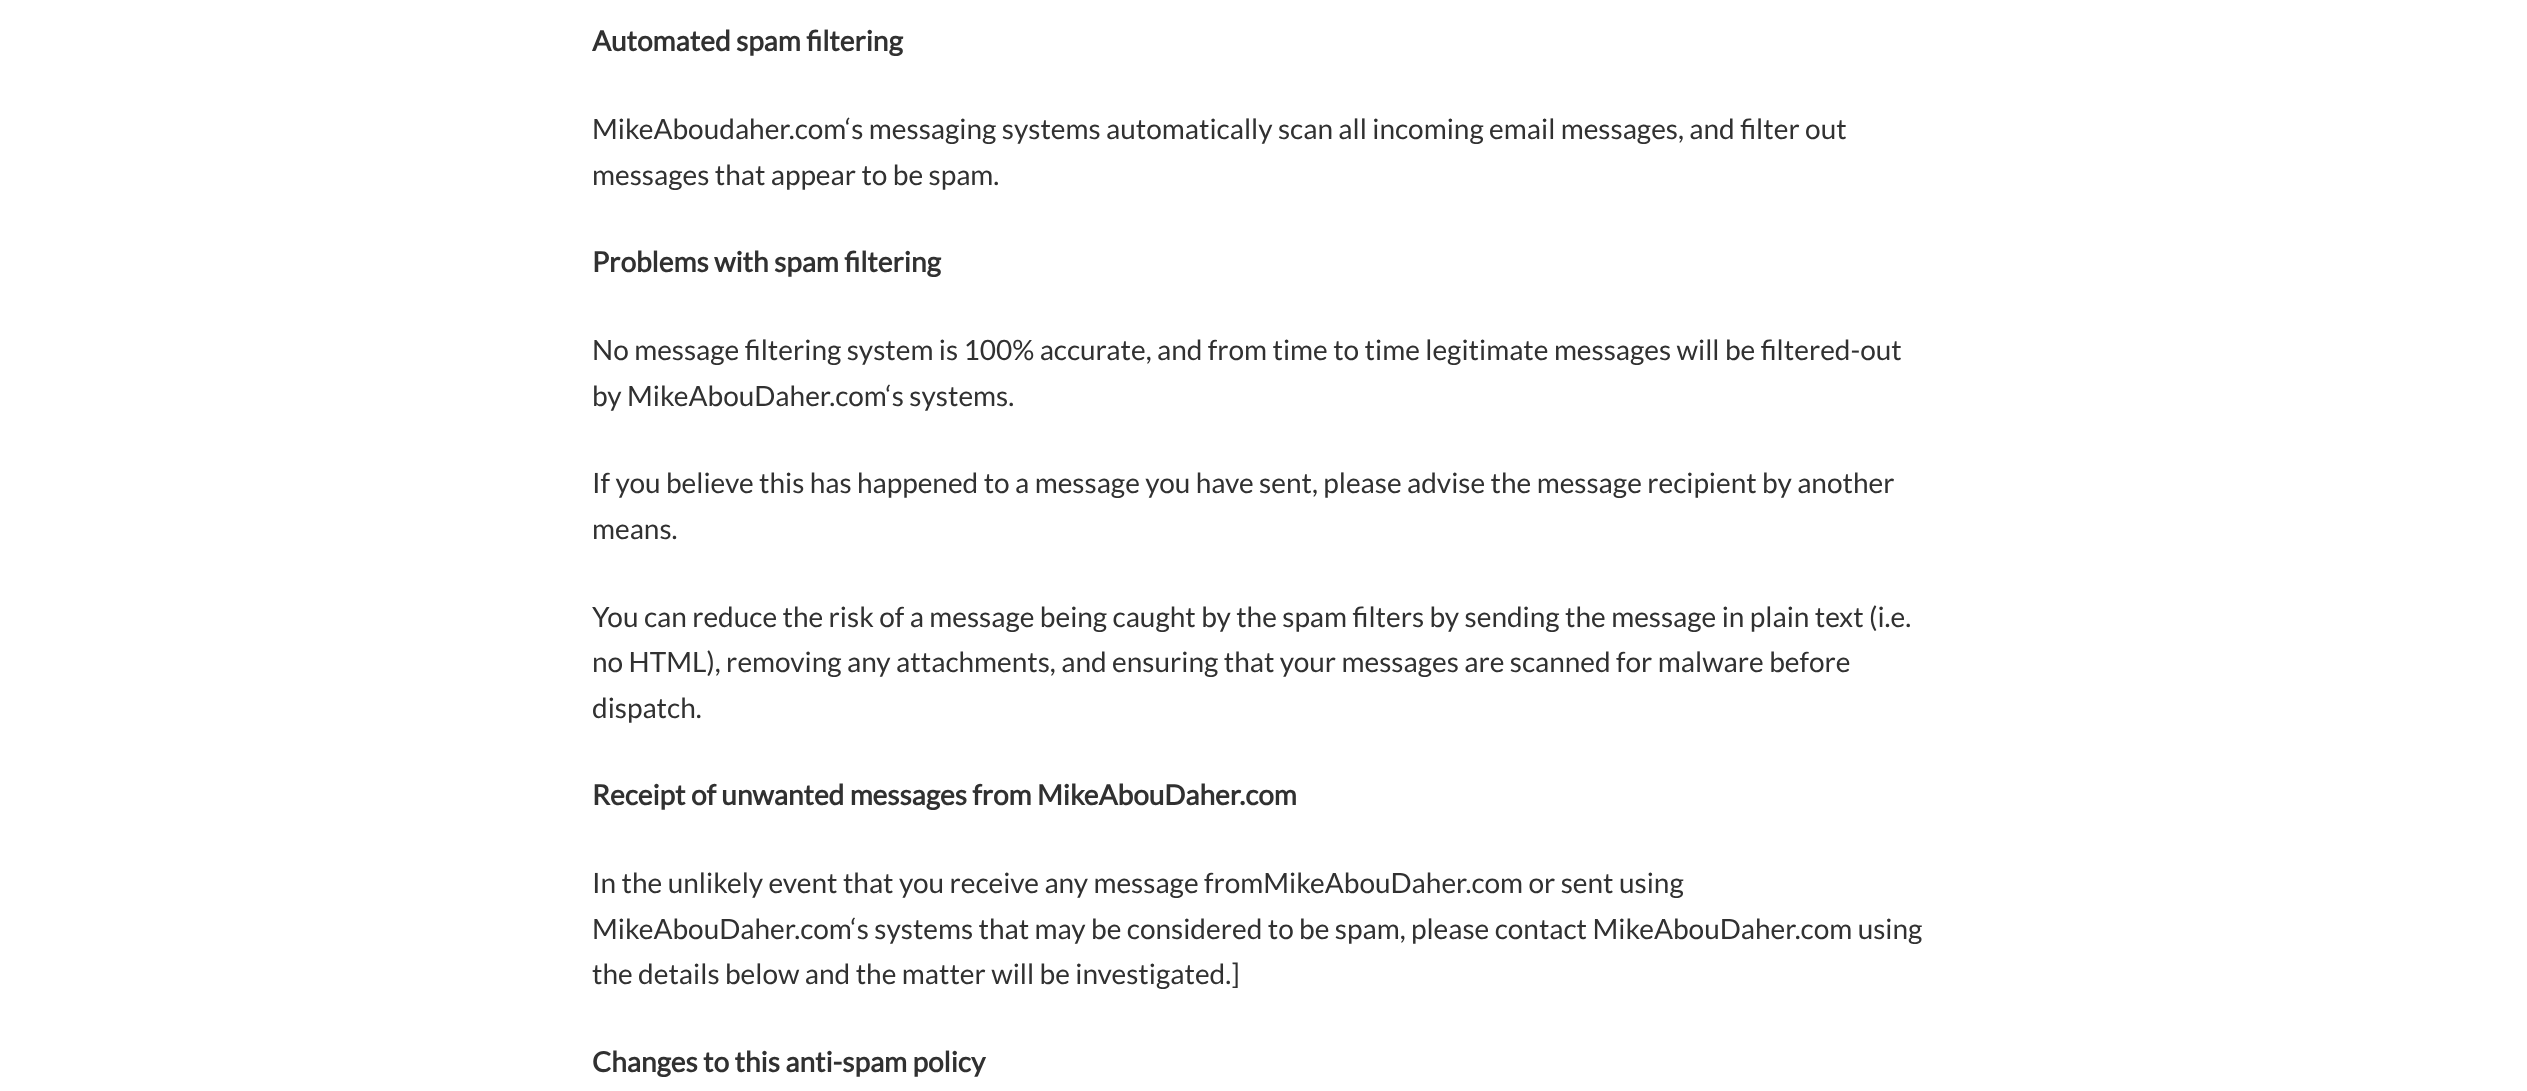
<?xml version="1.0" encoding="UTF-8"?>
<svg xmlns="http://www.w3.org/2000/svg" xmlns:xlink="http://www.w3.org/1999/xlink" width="2527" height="1091">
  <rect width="100%" height="100%" fill="#ffffff" />
  <text x="592" y="51" style="font-family: Lato; font-size: 28px; font-weight: bold; fill: #313131">Automated spam filtering</text>
  <text x="592" y="139" style="font-family: Lato; font-size: 28px; fill: #313131">MikeAboudaher.com‘s messaging systems automatically scan all incoming email messages, and filter out</text>
  <text x="592" y="185" style="font-family: Lato; font-size: 28px; fill: #313131">messages that appear to be spam.</text>
  <text x="592" y="272" style="font-family: Lato; font-size: 28px; font-weight: bold; fill: #313131">Problems with spam filtering</text>
  <text x="592" y="360" style="font-family: Lato; font-size: 28px; fill: #313131">No message filtering system is 100% accurate, and from time to time legitimate messages will be filtered-out</text>
  <text x="592" y="406" style="font-family: Lato; font-size: 28px; fill: #313131">by MikeAbouDaher.com‘s systems.</text>
  <text x="592" y="493" style="font-family: Lato; font-size: 28px; fill: #313131">If you believe this has happened to a message you have sent, please advise the message recipient by another</text>
  <text x="592" y="539" style="font-family: Lato; font-size: 28px; fill: #313131">means.</text>
  <text x="592" y="627" style="font-family: Lato; font-size: 28px; fill: #313131">You can reduce the risk of a message being caught by the spam filters by sending the message in plain text (i.e.</text>
  <text x="592" y="672" style="font-family: Lato; font-size: 28px; fill: #313131">no HTML), removing any attachments, and ensuring that your messages are scanned for malware before</text>
  <text x="592" y="718" style="font-family: Lato; font-size: 28px; fill: #313131">dispatch.</text>
  <text x="592" y="805" style="font-family: Lato; font-size: 28px; font-weight: bold; fill: #313131">Receipt of unwanted messages from MikeAbouDaher.com</text>
  <text x="592" y="893" style="font-family: Lato; font-size: 28px; fill: #313131">In the unlikely event that you receive any message fromMikeAbouDaher.com or sent using</text>
  <text x="592" y="939" style="font-family: Lato; font-size: 28px; fill: #313131">MikeAbouDaher.com‘s systems that may be considered to be spam, please contact MikeAbouDaher.com using</text>
  <text x="592" y="984" style="font-family: Lato; font-size: 28px; fill: #313131">the details below and the matter will be investigated.]</text>
  <text x="592" y="1072" style="font-family: Lato; font-size: 28px; font-weight: bold; fill: #313131">Changes to this anti-spam policy</text>
</svg>
